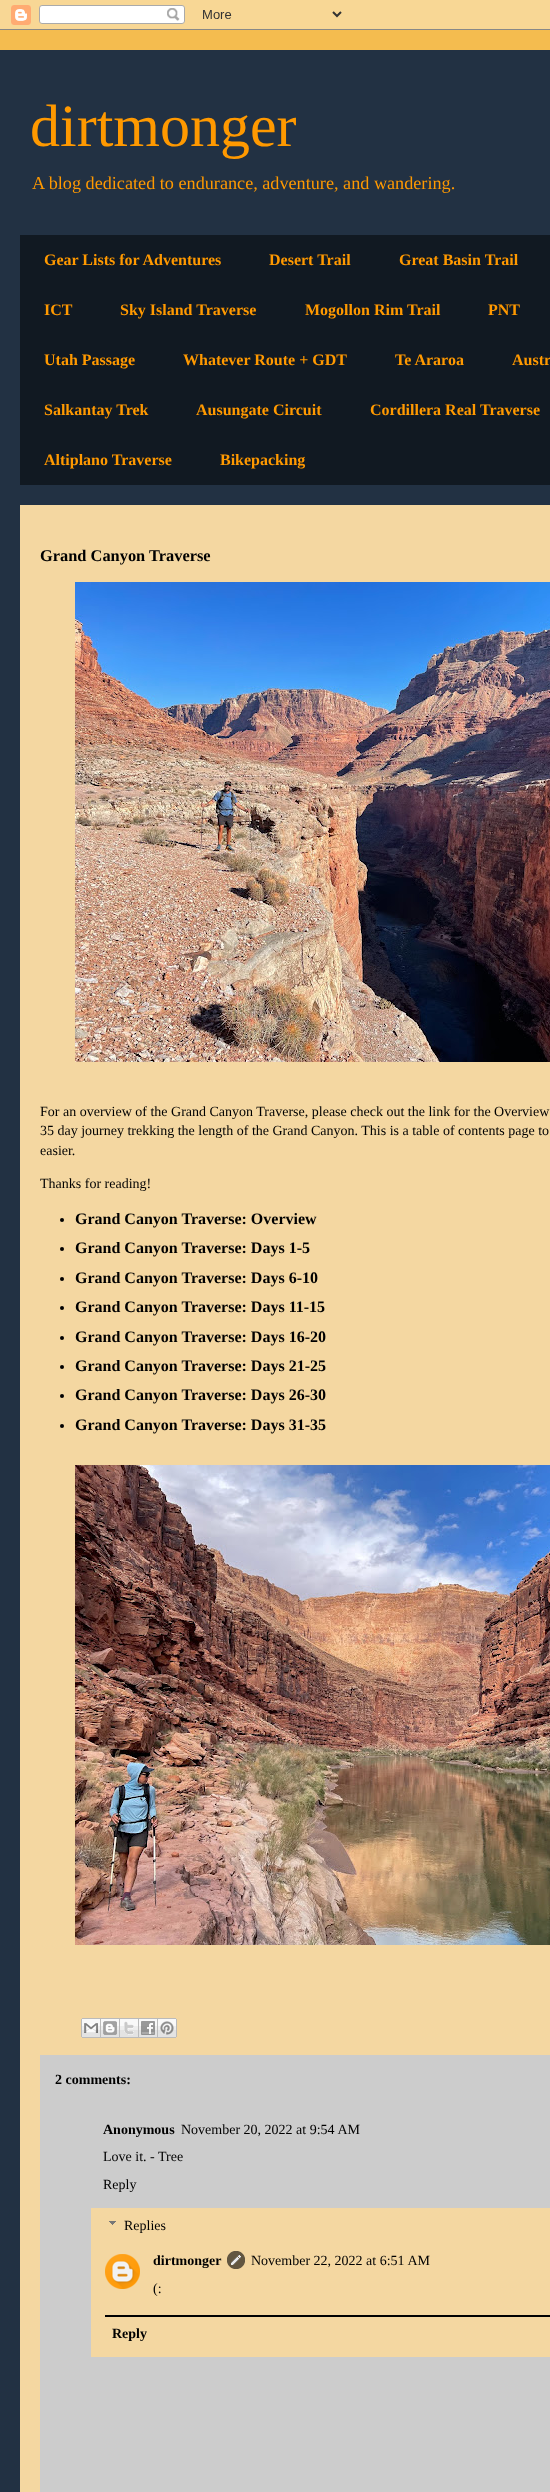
<?xml version="1.0" encoding="UTF-8"?>
<svg xmlns="http://www.w3.org/2000/svg" xmlns:xlink="http://www.w3.org/1999/xlink" width="550" height="2492">
  <rect width="100%" height="100%" fill="#f4bc4f" />
  <image x="0" y="0" width="550" height="30" xlink:href="image1.png" />
  <rect y="50" width="550" height="2442" fill="#223143" />
  <rect x="20" y="235" width="530" height="250" fill="#111922" />
  <rect x="20" y="505" width="530" height="1987" fill="#f4d7a1" />
  <image x="75" y="582" width="475" height="480" xlink:href="image2.png" />
  <circle cx="62" cy="1220" r="2" fill="#000000" />
  <circle cx="62" cy="1249" r="2" fill="#000000" />
  <circle cx="62" cy="1279" r="2" fill="#000000" />
  <circle cx="62" cy="1308" r="2" fill="#000000" />
  <circle cx="62" cy="1338" r="2" fill="#000000" />
  <circle cx="62" cy="1367" r="2" fill="#000000" />
  <circle cx="62" cy="1396" r="2" fill="#000000" />
  <circle cx="62" cy="1426" r="2" fill="#000000" />
  <image x="75" y="1465" width="475" height="480" xlink:href="image3.png" />
  <image x="81" y="2018" width="20" height="20" xlink:href="image4.png" />
  <image x="101" y="2018" width="19" height="20" xlink:href="image5.png" />
  <image x="120" y="2018" width="19" height="20" xlink:href="image6.png" />
  <image x="139" y="2018" width="19" height="20" xlink:href="image7.png" />
  <image x="158" y="2018" width="19" height="20" xlink:href="image8.png" />
  <rect x="40" y="2055" width="510" height="437" fill="#cccccc" />
  <rect x="91" y="2208" width="459" height="149" fill="#f4d7a1" />
  <image x="109" y="2221" width="7" height="4" xlink:href="image9.png" />
  <image x="105" y="2254" width="35" height="35" xlink:href="image10.png" />
  <image x="227" y="2251" width="18" height="18" xlink:href="image11.png" />
  <rect x="105" y="2315" width="445" height="2" fill="#000000" />
  <text x="30" y="146" style="font-family: Liberation Serif; font-size: 60px; fill: #ff9900">dirtmonger</text>
  <text x="32" y="189" style="font-family: Liberation Serif; font-size: 18.2px; fill: #ff9900">A blog dedicated to endurance, adventure, and wandering.</text>
  <text x="44" y="265" style="font-family: Liberation Serif; font-size: 16px; font-weight: bold; fill: #ff9900">Gear Lists for Adventures</text>
  <text x="269" y="265" style="font-family: Liberation Serif; font-size: 16px; font-weight: bold; fill: #ff9900">Desert Trail</text>
  <text x="399" y="265" style="font-family: Liberation Serif; font-size: 16px; font-weight: bold; fill: #ff9900">Great Basin Trail</text>
  <text x="44" y="315" style="font-family: Liberation Serif; font-size: 16px; font-weight: bold; fill: #ff9900">ICT</text>
  <text x="120" y="315" style="font-family: Liberation Serif; font-size: 16px; font-weight: bold; fill: #ff9900">Sky Island Traverse</text>
  <text x="305" y="315" style="font-family: Liberation Serif; font-size: 16px; font-weight: bold; fill: #ff9900">Mogollon Rim Trail</text>
  <text x="488" y="315" style="font-family: Liberation Serif; font-size: 16px; font-weight: bold; fill: #ff9900">PNT</text>
  <text x="44" y="365" style="font-family: Liberation Serif; font-size: 16px; font-weight: bold; fill: #ff9900">Utah Passage</text>
  <text x="183" y="365" style="font-family: Liberation Serif; font-size: 16px; font-weight: bold; fill: #ff9900">Whatever Route + GDT</text>
  <text x="395" y="365" style="font-family: Liberation Serif; font-size: 16px; font-weight: bold; fill: #ff9900">Te Araroa</text>
  <text x="512" y="365" style="font-family: Liberation Serif; font-size: 16px; font-weight: bold; fill: #ff9900">Austr</text>
  <text x="44" y="415" style="font-family: Liberation Serif; font-size: 16px; font-weight: bold; fill: #ff9900">Salkantay Trek</text>
  <text x="196" y="415" style="font-family: Liberation Serif; font-size: 16px; font-weight: bold; fill: #ff9900">Ausungate Circuit</text>
  <text x="370" y="415" style="font-family: Liberation Serif; font-size: 16px; font-weight: bold; fill: #ff9900">Cordillera Real Traverse</text>
  <text x="44" y="465" style="font-family: Liberation Serif; font-size: 16px; font-weight: bold; fill: #ff9900">Altiplano Traverse</text>
  <text x="220" y="465" style="font-family: Liberation Serif; font-size: 16px; font-weight: bold; fill: #ff9900">Bikepacking</text>
  <text x="40" y="561" style="font-family: Liberation Serif; font-size: 16.4px; font-weight: bold; fill: #000000">Grand Canyon Traverse</text>
  <text x="40" y="1116" style="font-family: Liberation Serif; font-size: 14px; fill: #000000">For an overview of the Grand Canyon Traverse, please check out the link for the Overview</text>
  <text x="40" y="1135" style="font-family: Liberation Serif; font-size: 14px; fill: #000000">35 day journey trekking the length of the Grand Canyon. This is a table of contents page to</text>
  <text x="40" y="1155" style="font-family: Liberation Serif; font-size: 14px; fill: #000000">easier.</text>
  <text x="40" y="1188" style="font-family: Liberation Serif; font-size: 14px; fill: #000000">Thanks for reading!</text>
  <text x="75" y="1224" style="font-family: Liberation Serif; font-size: 16px; font-weight: bold; fill: #000000">Grand Canyon Traverse: Overview</text>
  <text x="75" y="1253" style="font-family: Liberation Serif; font-size: 16px; font-weight: bold; fill: #000000">Grand Canyon Traverse: Days 1-5</text>
  <text x="75" y="1283" style="font-family: Liberation Serif; font-size: 16px; font-weight: bold; fill: #000000">Grand Canyon Traverse: Days 6-10</text>
  <text x="75" y="1312" style="font-family: Liberation Serif; font-size: 16px; font-weight: bold; fill: #000000">Grand Canyon Traverse: Days 11-15</text>
  <text x="75" y="1342" style="font-family: Liberation Serif; font-size: 16px; font-weight: bold; fill: #000000">Grand Canyon Traverse: Days 16-20</text>
  <text x="75" y="1371" style="font-family: Liberation Serif; font-size: 16px; font-weight: bold; fill: #000000">Grand Canyon Traverse: Days 21-25</text>
  <text x="75" y="1400" style="font-family: Liberation Serif; font-size: 16px; font-weight: bold; fill: #000000">Grand Canyon Traverse: Days 26-30</text>
  <text x="75" y="1430" style="font-family: Liberation Serif; font-size: 16px; font-weight: bold; fill: #000000">Grand Canyon Traverse: Days 31-35</text>
  <text x="55" y="2084" style="font-family: Liberation Serif; font-size: 14px; font-weight: bold; fill: #000000">2 comments:</text>
  <text x="103" y="2134" style="font-family: Liberation Serif; font-size: 14px; font-weight: bold; fill: #000000">Anonymous</text>
  <text x="181" y="2134" style="font-family: Liberation Serif; font-size: 14px; fill: #000000">November 20, 2022 at 9:54 AM</text>
  <text x="103" y="2161" style="font-family: Liberation Serif; font-size: 14px; fill: #000000">Love it. - Tree</text>
  <text x="103" y="2189" style="font-family: Liberation Serif; font-size: 14px; fill: #000000">Reply</text>
  <text x="124" y="2230" style="font-family: Liberation Serif; font-size: 14px; fill: #000000">Replies</text>
  <text x="153" y="2265" style="font-family: Liberation Serif; font-size: 14px; font-weight: bold; fill: #000000">dirtmonger</text>
  <text x="251" y="2265" style="font-family: Liberation Serif; font-size: 14px; fill: #000000">November 22, 2022 at 6:51 AM</text>
  <text x="153" y="2293" style="font-family: Liberation Serif; font-size: 14px; fill: #000000">(:</text>
  <text x="112" y="2338" style="font-family: Liberation Serif; font-size: 14px; font-weight: bold; fill: #000000">Reply</text>
</svg>
